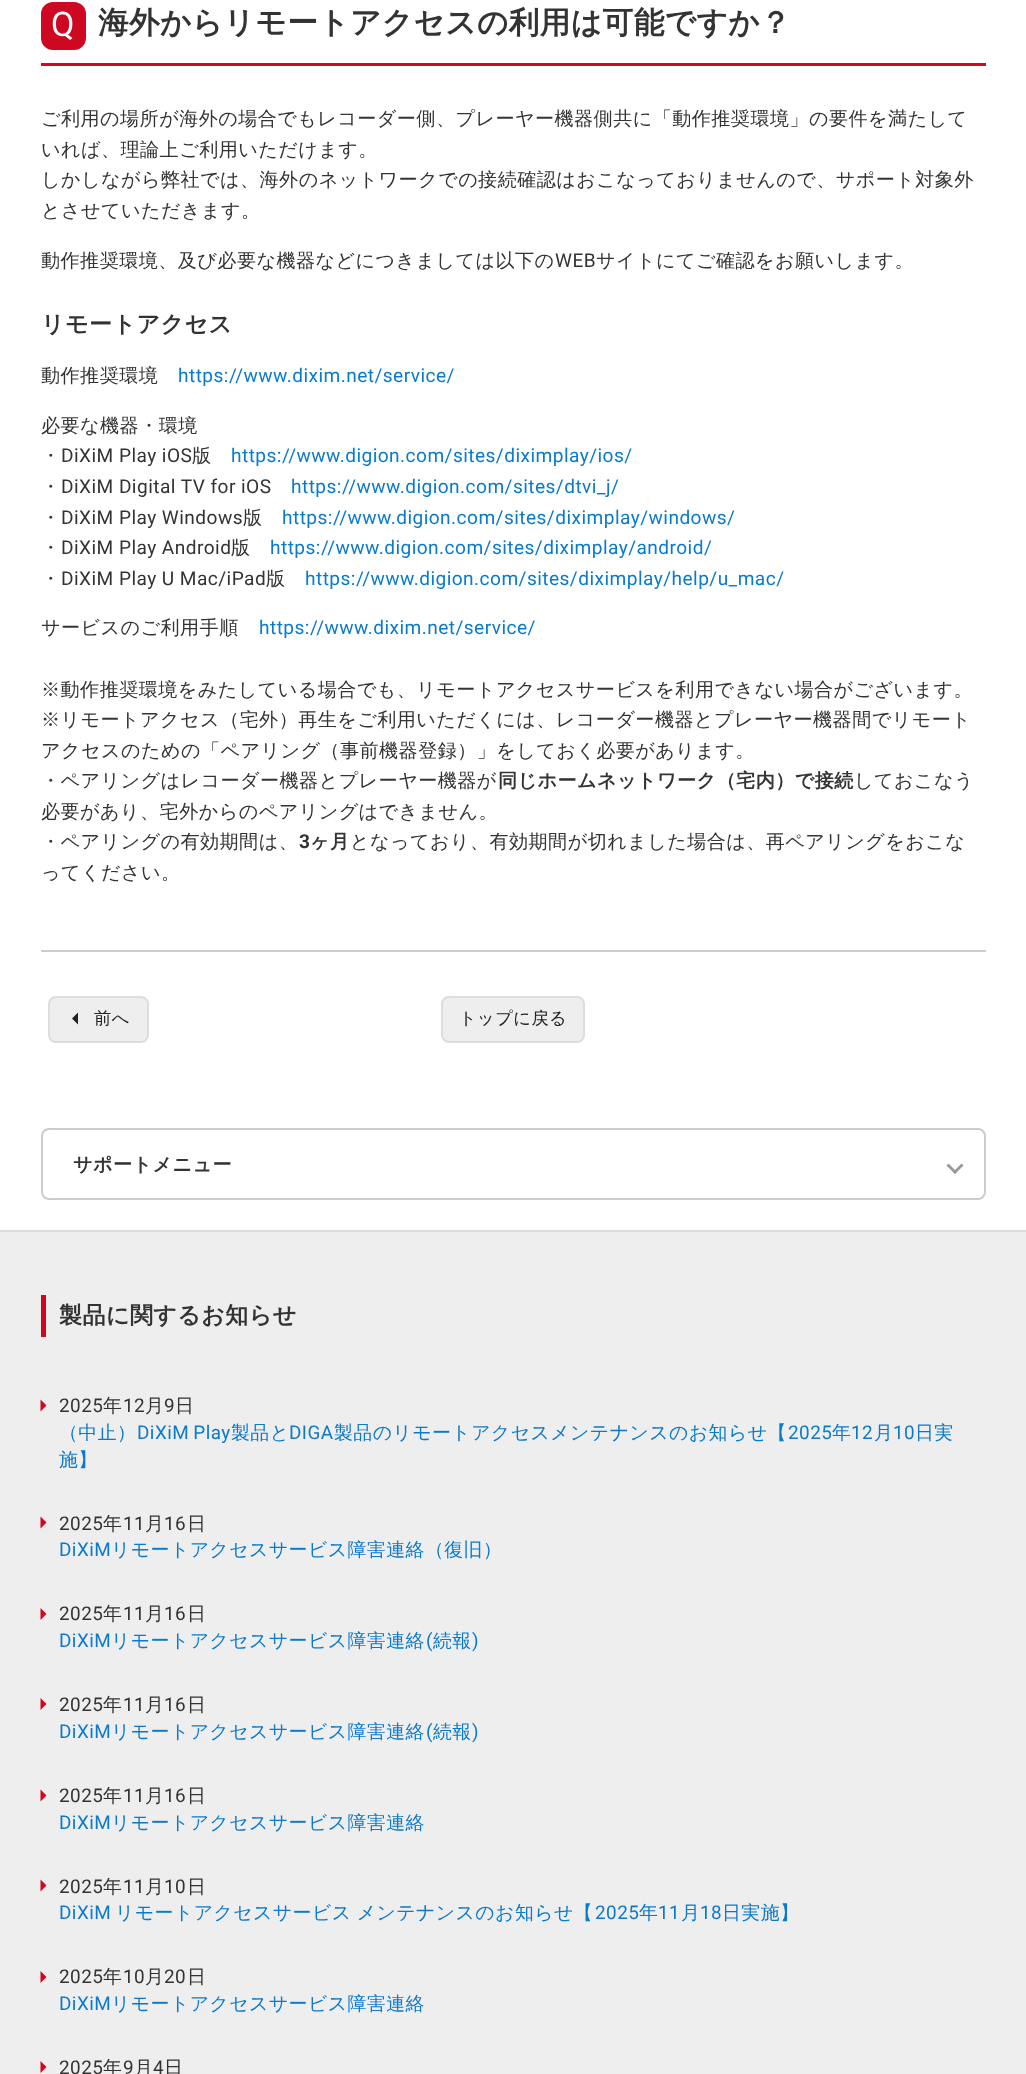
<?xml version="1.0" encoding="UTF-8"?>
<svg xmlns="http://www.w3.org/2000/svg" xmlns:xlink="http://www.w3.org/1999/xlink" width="1026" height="2074">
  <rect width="100%" height="100%" fill="#eeeeee" />
  <rect width="1026" height="1230" fill="#ffffff" />
  <rect x="41" y="63" width="945" height="3" fill="#cd0820" />
  <rect x="41" y="2" width="45" height="48" rx="12" fill="#cd0820" />
  <rect x="41" y="950" width="945" height="2" fill="#cccccc" />
  <rect x="49" y="997" width="99" height="45" rx="7" fill="#eeeeee" stroke="#dddddd" stroke-width="2" />
  <path d="M 78 1012.5 v 12 l -6 -6 z" fill="#222222" />
  <rect x="442" y="997" width="142" height="45" rx="7" fill="#eeeeee" stroke="#dddddd" stroke-width="2" />
  <rect x="42" y="1129" width="943" height="70" rx="7" fill="none" stroke="#cccccc" stroke-width="2" />
  <path d="M 961.5 1163.5 l 2 2 l -8.5 8.5 l -2 -2 z" fill="#999999" />
  <path d="M 948.5 1163.5 l 8.5 8.5 l -2 2 l -8.5 -8.5 z" fill="#999999" />
  <rect y="1230" width="1026" height="2" fill="#dddddd" />
  <rect x="41" y="1295" width="5" height="42" fill="#cd0820" />
  <path d="M 40.5 1411.5 v -12 l 6 6 z" fill="#cd0820" />
  <path d="M 40.5 1528.5 v -12 l 6 6 z" fill="#cd0820" />
  <path d="M 40.5 1620 v -12 l 6 6 z" fill="#cd0820" />
  <path d="M 40.5 1710 v -12 l 6 6 z" fill="#cd0820" />
  <path d="M 40.5 1801.5 v -12 l 6 6 z" fill="#cd0820" />
  <path d="M 40.5 1891.5 v -12 l 6 6 z" fill="#cd0820" />
  <path d="M 40.5 1983 v -12 l 6 6 z" fill="#cd0820" />
  <path d="M 40.5 2073 v -12 l 6 6 z" fill="#cd0820" />
  <text x="51" y="36" style="font-family: Roboto; font-size: 34px; letter-spacing: 0.45px; fill: #ffffff">Q</text>
  <text x="98" y="33" style="font-family: WenQuanYi Zen Hei; font-size: 30.6px; font-weight: bold; letter-spacing: 0.45px; fill: #333333">海外からリモートアクセスの利用は可能ですか？</text>
  <text x="41" y="125" style="font-family: WenQuanYi Zen Hei; font-size: 19.1px; font-weight: 500; letter-spacing: 0.45px; fill: #333333">ご利用の場所が海外の場合でもレコーダー側、プレーヤー機器側共に「動作推奨環境」の要件を満たして</text>
  <text x="41" y="156" style="font-family: WenQuanYi Zen Hei; font-size: 19.1px; font-weight: 500; letter-spacing: 0.45px; fill: #333333">いれば、理論上ご利用いただけます。</text>
  <text x="41" y="186" style="font-family: WenQuanYi Zen Hei; font-size: 19.1px; font-weight: 500; letter-spacing: 0.45px; fill: #333333">しかしながら弊社では、海外のネットワークでの接続確認はおこなっておりませんので、サポート対象外</text>
  <text x="41" y="217" style="font-family: WenQuanYi Zen Hei; font-size: 19.1px; font-weight: 500; letter-spacing: 0.45px; fill: #333333">とさせていただきます。</text>
  <text x="41" y="267" style="font-family: WenQuanYi Zen Hei; font-size: 19.1px; font-weight: 500; letter-spacing: 0.45px; fill: #333333">動作推奨環境、及び必要な機器などにつきましては以下の</text>
  <text x="555" y="267" style="font-family: Roboto; font-size: 19.1px; letter-spacing: 0.45px; fill: #333333">WEB</text>
  <text x="596" y="267" style="font-family: WenQuanYi Zen Hei; font-size: 19.1px; font-weight: 500; letter-spacing: 0.45px; fill: #333333">サイトにてご確認をお願いします。</text>
  <text x="41" y="332" style="font-family: WenQuanYi Zen Hei; font-size: 23px; font-weight: bold; letter-spacing: 0.45px; fill: #333333">リモートアクセス</text>
  <text x="41" y="382" style="font-family: WenQuanYi Zen Hei; font-size: 19.1px; font-weight: 500; letter-spacing: 0.45px; fill: #333333">動作推奨環境</text>
  <text x="178" y="382" style="font-family: Roboto; font-size: 19.1px; letter-spacing: 0.45px; fill: #0b7aca">https://www.dixim.net/service/</text>
  <text x="41" y="432" style="font-family: WenQuanYi Zen Hei; font-size: 19.1px; font-weight: 500; letter-spacing: 0.45px; fill: #333333">必要な機器・環境</text>
  <text x="41" y="462" style="font-family: WenQuanYi Zen Hei; font-size: 19.1px; font-weight: 500; letter-spacing: 0.45px; fill: #333333">・</text>
  <text x="61" y="462" style="font-family: Roboto; font-size: 19.1px; letter-spacing: 0.45px; fill: #333333">DiXiM Play iOS</text>
  <text x="192" y="462" style="font-family: WenQuanYi Zen Hei; font-size: 19.1px; font-weight: 500; letter-spacing: 0.45px; fill: #333333">版</text>
  <text x="231" y="462" style="font-family: Roboto; font-size: 19.1px; letter-spacing: 0.45px; fill: #0b7aca">https://www.digion.com/sites/diximplay/ios/</text>
  <text x="41" y="493" style="font-family: WenQuanYi Zen Hei; font-size: 19.1px; font-weight: 500; letter-spacing: 0.45px; fill: #333333">・</text>
  <text x="61" y="493" style="font-family: Roboto; font-size: 19.1px; letter-spacing: 0.45px; fill: #333333">DiXiM Digital TV for iOS</text>
  <text x="291" y="493" style="font-family: Roboto; font-size: 19.1px; letter-spacing: 0.45px; fill: #0b7aca">https://www.digion.com/sites/dtvi_j/</text>
  <text x="41" y="524" style="font-family: WenQuanYi Zen Hei; font-size: 19.1px; font-weight: 500; letter-spacing: 0.45px; fill: #333333">・</text>
  <text x="61" y="524" style="font-family: Roboto; font-size: 19.1px; letter-spacing: 0.45px; fill: #333333">DiXiM Play Windows</text>
  <text x="243" y="524" style="font-family: WenQuanYi Zen Hei; font-size: 19.1px; font-weight: 500; letter-spacing: 0.45px; fill: #333333">版</text>
  <text x="282" y="524" style="font-family: Roboto; font-size: 19.1px; letter-spacing: 0.45px; fill: #0b7aca">https://www.digion.com/sites/diximplay/windows/</text>
  <text x="41" y="554" style="font-family: WenQuanYi Zen Hei; font-size: 19.1px; font-weight: 500; letter-spacing: 0.45px; fill: #333333">・</text>
  <text x="61" y="554" style="font-family: Roboto; font-size: 19.1px; letter-spacing: 0.45px; fill: #333333">DiXiM Play Android</text>
  <text x="231" y="554" style="font-family: WenQuanYi Zen Hei; font-size: 19.1px; font-weight: 500; letter-spacing: 0.45px; fill: #333333">版</text>
  <text x="270" y="554" style="font-family: Roboto; font-size: 19.1px; letter-spacing: 0.45px; fill: #0b7aca">https://www.digion.com/sites/diximplay/android/</text>
  <text x="41" y="585" style="font-family: WenQuanYi Zen Hei; font-size: 19.1px; font-weight: 500; letter-spacing: 0.45px; fill: #333333">・</text>
  <text x="61" y="585" style="font-family: Roboto; font-size: 19.1px; letter-spacing: 0.45px; fill: #333333">DiXiM Play U Mac/iPad</text>
  <text x="266" y="585" style="font-family: WenQuanYi Zen Hei; font-size: 19.1px; font-weight: 500; letter-spacing: 0.45px; fill: #333333">版</text>
  <text x="305" y="585" style="font-family: Roboto; font-size: 19.1px; letter-spacing: 0.45px; fill: #0b7aca">https://www.digion.com/sites/diximplay/help/u_mac/</text>
  <text x="41" y="634" style="font-family: WenQuanYi Zen Hei; font-size: 19.1px; font-weight: 500; letter-spacing: 0.45px; fill: #333333">サービスのご利用手順</text>
  <text x="259" y="634" style="font-family: Roboto; font-size: 19.1px; letter-spacing: 0.45px; fill: #0b7aca">https://www.dixim.net/service/</text>
  <text x="41" y="696" style="font-family: WenQuanYi Zen Hei; font-size: 19.1px; font-weight: 500; letter-spacing: 0.45px; fill: #333333">※動作推奨環境をみたしている場合でも、リモートアクセスサービスを利用できない場合がございます。</text>
  <text x="41" y="726" style="font-family: WenQuanYi Zen Hei; font-size: 19.1px; font-weight: 500; letter-spacing: 0.45px; fill: #333333">※リモートアクセス（宅外）再生をご利用いただくには、レコーダー機器とプレーヤー機器間でリモート</text>
  <text x="41" y="757" style="font-family: WenQuanYi Zen Hei; font-size: 19.1px; font-weight: 500; letter-spacing: 0.45px; fill: #333333">アクセスのための「ペアリング（事前機器登録）」をしておく必要があります。</text>
  <text x="41" y="787" style="font-family: WenQuanYi Zen Hei; font-size: 19.1px; font-weight: 500; letter-spacing: 0.45px; fill: #333333">・ペアリングはレコーダー機器とプレーヤー機器が</text>
  <text x="498" y="787" style="font-family: WenQuanYi Zen Hei; font-size: 19.1px; font-weight: bold; letter-spacing: 0.45px; fill: #333333">同じホームネットワーク（宅内）で接続</text>
  <text x="854" y="787" style="font-family: WenQuanYi Zen Hei; font-size: 19.1px; font-weight: 500; letter-spacing: 0.45px; fill: #333333">しておこなう</text>
  <text x="41" y="818" style="font-family: WenQuanYi Zen Hei; font-size: 19.1px; font-weight: 500; letter-spacing: 0.45px; fill: #333333">必要があり、宅外からのペアリングはできません。</text>
  <text x="41" y="848" style="font-family: WenQuanYi Zen Hei; font-size: 19.1px; font-weight: 500; letter-spacing: 0.45px; fill: #333333">・ペアリングの有効期間は、</text>
  <text x="299" y="848" style="font-family: Roboto; font-size: 19.1px; font-weight: bold; letter-spacing: 0.45px; fill: #333333">3</text>
  <text x="310" y="848" style="font-family: WenQuanYi Zen Hei; font-size: 19.1px; font-weight: bold; letter-spacing: 0.45px; fill: #333333">ヶ月</text>
  <text x="350" y="848" style="font-family: WenQuanYi Zen Hei; font-size: 19.1px; font-weight: 500; letter-spacing: 0.45px; fill: #333333">となっており、有効期間が切れました場合は、再ペアリングをおこな</text>
  <text x="41" y="879" style="font-family: WenQuanYi Zen Hei; font-size: 19.1px; font-weight: 500; letter-spacing: 0.45px; fill: #333333">ってください。</text>
  <text x="94" y="1024" style="font-family: WenQuanYi Zen Hei; font-size: 17.25px; font-weight: 500; letter-spacing: 0.45px; fill: #222222">前へ</text>
  <text x="459" y="1024" style="font-family: WenQuanYi Zen Hei; font-size: 17.25px; font-weight: 500; letter-spacing: 0.45px; fill: #222222">トップに戻る</text>
  <text x="73" y="1171" style="font-family: WenQuanYi Zen Hei; font-size: 19.1px; font-weight: bold; letter-spacing: 0.45px; fill: #333333">サポートメニュー</text>
  <text x="59" y="1323" style="font-family: WenQuanYi Zen Hei; font-size: 23px; font-weight: bold; letter-spacing: 0.45px; fill: #333333">製品に関するお知らせ</text>
  <text x="59" y="1412" style="font-family: Roboto; font-size: 18.9px; letter-spacing: 0.45px; fill: #333333">2025</text>
  <text x="103" y="1412" style="font-family: WenQuanYi Zen Hei; font-size: 18.9px; font-weight: 500; letter-spacing: 0.45px; fill: #333333">年</text>
  <text x="123" y="1412" style="font-family: Roboto; font-size: 18.9px; letter-spacing: 0.45px; fill: #333333">12</text>
  <text x="145" y="1412" style="font-family: WenQuanYi Zen Hei; font-size: 18.9px; font-weight: 500; letter-spacing: 0.45px; fill: #333333">月</text>
  <text x="164" y="1412" style="font-family: Roboto; font-size: 18.9px; letter-spacing: 0.45px; fill: #333333">9</text>
  <text x="175" y="1412" style="font-family: WenQuanYi Zen Hei; font-size: 18.9px; font-weight: 500; letter-spacing: 0.45px; fill: #333333">日</text>
  <text x="59" y="1439" style="font-family: WenQuanYi Zen Hei; font-size: 18.9px; font-weight: 500; letter-spacing: 0.45px; fill: #0b7aca">（中止）</text>
  <text x="137" y="1439" word-spacing="-1" style="font-family: Roboto; font-size: 18.9px; letter-spacing: 0.45px; fill: #0b7aca">DiXiM Play</text>
  <text x="231" y="1439" style="font-family: WenQuanYi Zen Hei; font-size: 18.9px; font-weight: 500; letter-spacing: 0.45px; fill: #0b7aca">製品と</text>
  <text x="289" y="1439" style="font-family: Roboto; font-size: 18.9px; letter-spacing: 0.45px; fill: #0b7aca">DIGA</text>
  <text x="334" y="1439" style="font-family: WenQuanYi Zen Hei; font-size: 18.9px; font-weight: 500; letter-spacing: 0.45px; fill: #0b7aca">製品のリモートアクセスメンテナンスのお知らせ【</text>
  <text x="788" y="1439" style="font-family: Roboto; font-size: 18.9px; letter-spacing: 0.45px; fill: #0b7aca">2025</text>
  <text x="832" y="1439" style="font-family: WenQuanYi Zen Hei; font-size: 18.9px; font-weight: 500; letter-spacing: 0.45px; fill: #0b7aca">年</text>
  <text x="851" y="1439" style="font-family: Roboto; font-size: 18.9px; letter-spacing: 0.45px; fill: #0b7aca">12</text>
  <text x="874" y="1439" style="font-family: WenQuanYi Zen Hei; font-size: 18.9px; font-weight: 500; letter-spacing: 0.45px; fill: #0b7aca">月</text>
  <text x="893" y="1439" style="font-family: Roboto; font-size: 18.9px; letter-spacing: 0.45px; fill: #0b7aca">10</text>
  <text x="915" y="1439" style="font-family: WenQuanYi Zen Hei; font-size: 18.9px; font-weight: 500; letter-spacing: 0.45px; fill: #0b7aca">日実</text>
  <text x="59" y="1466" style="font-family: WenQuanYi Zen Hei; font-size: 18.9px; font-weight: 500; letter-spacing: 0.45px; fill: #0b7aca">施】</text>
  <text x="59" y="1530" style="font-family: Roboto; font-size: 18.9px; letter-spacing: 0.45px; fill: #333333">2025</text>
  <text x="103" y="1530" style="font-family: WenQuanYi Zen Hei; font-size: 18.9px; font-weight: 500; letter-spacing: 0.45px; fill: #333333">年</text>
  <text x="123" y="1530" style="font-family: Roboto; font-size: 18.9px; letter-spacing: 0.45px; fill: #333333">11</text>
  <text x="145" y="1530" style="font-family: WenQuanYi Zen Hei; font-size: 18.9px; font-weight: 500; letter-spacing: 0.45px; fill: #333333">月</text>
  <text x="164" y="1530" style="font-family: Roboto; font-size: 18.9px; letter-spacing: 0.45px; fill: #333333">16</text>
  <text x="187" y="1530" style="font-family: WenQuanYi Zen Hei; font-size: 18.9px; font-weight: 500; letter-spacing: 0.45px; fill: #333333">日</text>
  <text x="59" y="1556" style="font-family: Roboto; font-size: 18.9px; letter-spacing: 0.45px; fill: #0b7aca">DiXiM</text>
  <text x="111" y="1556" style="font-family: WenQuanYi Zen Hei; font-size: 18.9px; font-weight: 500; letter-spacing: 0.45px; fill: #0b7aca">リモートアクセスサービス障害連絡（復旧）</text>
  <text x="59" y="1620" style="font-family: Roboto; font-size: 18.9px; letter-spacing: 0.45px; fill: #333333">2025</text>
  <text x="103" y="1620" style="font-family: WenQuanYi Zen Hei; font-size: 18.9px; font-weight: 500; letter-spacing: 0.45px; fill: #333333">年</text>
  <text x="123" y="1620" style="font-family: Roboto; font-size: 18.9px; letter-spacing: 0.45px; fill: #333333">11</text>
  <text x="145" y="1620" style="font-family: WenQuanYi Zen Hei; font-size: 18.9px; font-weight: 500; letter-spacing: 0.45px; fill: #333333">月</text>
  <text x="164" y="1620" style="font-family: Roboto; font-size: 18.9px; letter-spacing: 0.45px; fill: #333333">16</text>
  <text x="187" y="1620" style="font-family: WenQuanYi Zen Hei; font-size: 18.9px; font-weight: 500; letter-spacing: 0.45px; fill: #333333">日</text>
  <text x="59" y="1647" style="font-family: Roboto; font-size: 18.9px; letter-spacing: 0.45px; fill: #0b7aca">DiXiM</text>
  <text x="111" y="1647" style="font-family: WenQuanYi Zen Hei; font-size: 18.9px; font-weight: 500; letter-spacing: 0.45px; fill: #0b7aca">リモートアクセスサービス障害連絡</text>
  <text x="426" y="1647" style="font-family: Roboto; font-size: 18.9px; letter-spacing: 0.45px; fill: #0b7aca">(</text>
  <text x="433" y="1647" style="font-family: WenQuanYi Zen Hei; font-size: 18.9px; font-weight: 500; letter-spacing: 0.45px; fill: #0b7aca">続報</text>
  <text x="472" y="1647" style="font-family: Roboto; font-size: 18.9px; letter-spacing: 0.45px; fill: #0b7aca">)</text>
  <text x="59" y="1711" style="font-family: Roboto; font-size: 18.9px; letter-spacing: 0.45px; fill: #333333">2025</text>
  <text x="103" y="1711" style="font-family: WenQuanYi Zen Hei; font-size: 18.9px; font-weight: 500; letter-spacing: 0.45px; fill: #333333">年</text>
  <text x="123" y="1711" style="font-family: Roboto; font-size: 18.9px; letter-spacing: 0.45px; fill: #333333">11</text>
  <text x="145" y="1711" style="font-family: WenQuanYi Zen Hei; font-size: 18.9px; font-weight: 500; letter-spacing: 0.45px; fill: #333333">月</text>
  <text x="164" y="1711" style="font-family: Roboto; font-size: 18.9px; letter-spacing: 0.45px; fill: #333333">16</text>
  <text x="187" y="1711" style="font-family: WenQuanYi Zen Hei; font-size: 18.9px; font-weight: 500; letter-spacing: 0.45px; fill: #333333">日</text>
  <text x="59" y="1738" style="font-family: Roboto; font-size: 18.9px; letter-spacing: 0.45px; fill: #0b7aca">DiXiM</text>
  <text x="111" y="1738" style="font-family: WenQuanYi Zen Hei; font-size: 18.9px; font-weight: 500; letter-spacing: 0.45px; fill: #0b7aca">リモートアクセスサービス障害連絡</text>
  <text x="426" y="1738" style="font-family: Roboto; font-size: 18.9px; letter-spacing: 0.45px; fill: #0b7aca">(</text>
  <text x="433" y="1738" style="font-family: WenQuanYi Zen Hei; font-size: 18.9px; font-weight: 500; letter-spacing: 0.45px; fill: #0b7aca">続報</text>
  <text x="472" y="1738" style="font-family: Roboto; font-size: 18.9px; letter-spacing: 0.45px; fill: #0b7aca">)</text>
  <text x="59" y="1802" style="font-family: Roboto; font-size: 18.9px; letter-spacing: 0.45px; fill: #333333">2025</text>
  <text x="103" y="1802" style="font-family: WenQuanYi Zen Hei; font-size: 18.9px; font-weight: 500; letter-spacing: 0.45px; fill: #333333">年</text>
  <text x="123" y="1802" style="font-family: Roboto; font-size: 18.9px; letter-spacing: 0.45px; fill: #333333">11</text>
  <text x="145" y="1802" style="font-family: WenQuanYi Zen Hei; font-size: 18.9px; font-weight: 500; letter-spacing: 0.45px; fill: #333333">月</text>
  <text x="164" y="1802" style="font-family: Roboto; font-size: 18.9px; letter-spacing: 0.45px; fill: #333333">16</text>
  <text x="187" y="1802" style="font-family: WenQuanYi Zen Hei; font-size: 18.9px; font-weight: 500; letter-spacing: 0.45px; fill: #333333">日</text>
  <text x="59" y="1829" style="font-family: Roboto; font-size: 18.9px; letter-spacing: 0.45px; fill: #0b7aca">DiXiM</text>
  <text x="111" y="1829" style="font-family: WenQuanYi Zen Hei; font-size: 18.9px; font-weight: 500; letter-spacing: 0.45px; fill: #0b7aca">リモートアクセスサービス障害連絡</text>
  <text x="59" y="1893" style="font-family: Roboto; font-size: 18.9px; letter-spacing: 0.45px; fill: #333333">2025</text>
  <text x="103" y="1893" style="font-family: WenQuanYi Zen Hei; font-size: 18.9px; font-weight: 500; letter-spacing: 0.45px; fill: #333333">年</text>
  <text x="123" y="1893" style="font-family: Roboto; font-size: 18.9px; letter-spacing: 0.45px; fill: #333333">11</text>
  <text x="145" y="1893" style="font-family: WenQuanYi Zen Hei; font-size: 18.9px; font-weight: 500; letter-spacing: 0.45px; fill: #333333">月</text>
  <text x="164" y="1893" style="font-family: Roboto; font-size: 18.9px; letter-spacing: 0.45px; fill: #333333">10</text>
  <text x="187" y="1893" style="font-family: WenQuanYi Zen Hei; font-size: 18.9px; font-weight: 500; letter-spacing: 0.45px; fill: #333333">日</text>
  <text x="59" y="1919" style="font-family: Roboto; font-size: 18.9px; letter-spacing: 0.45px; fill: #0b7aca">DiXiM</text>
  <text x="115" y="1919" word-spacing="-1" style="font-family: WenQuanYi Zen Hei; font-size: 18.9px; font-weight: 500; letter-spacing: 0.45px; fill: #0b7aca">リモートアクセスサービス メンテナンスのお知らせ【</text>
  <text x="595" y="1919" style="font-family: Roboto; font-size: 18.9px; letter-spacing: 0.45px; fill: #0b7aca">2025</text>
  <text x="639" y="1919" style="font-family: WenQuanYi Zen Hei; font-size: 18.9px; font-weight: 500; letter-spacing: 0.45px; fill: #0b7aca">年</text>
  <text x="658" y="1919" style="font-family: Roboto; font-size: 18.9px; letter-spacing: 0.45px; fill: #0b7aca">11</text>
  <text x="681" y="1919" style="font-family: WenQuanYi Zen Hei; font-size: 18.9px; font-weight: 500; letter-spacing: 0.45px; fill: #0b7aca">月</text>
  <text x="700" y="1919" style="font-family: Roboto; font-size: 18.9px; letter-spacing: 0.45px; fill: #0b7aca">18</text>
  <text x="722" y="1919" style="font-family: WenQuanYi Zen Hei; font-size: 18.9px; font-weight: 500; letter-spacing: 0.45px; fill: #0b7aca">日実施】</text>
  <text x="59" y="1983" style="font-family: Roboto; font-size: 18.9px; letter-spacing: 0.45px; fill: #333333">2025</text>
  <text x="103" y="1983" style="font-family: WenQuanYi Zen Hei; font-size: 18.9px; font-weight: 500; letter-spacing: 0.45px; fill: #333333">年</text>
  <text x="123" y="1983" style="font-family: Roboto; font-size: 18.9px; letter-spacing: 0.45px; fill: #333333">10</text>
  <text x="145" y="1983" style="font-family: WenQuanYi Zen Hei; font-size: 18.9px; font-weight: 500; letter-spacing: 0.45px; fill: #333333">月</text>
  <text x="164" y="1983" style="font-family: Roboto; font-size: 18.9px; letter-spacing: 0.45px; fill: #333333">20</text>
  <text x="187" y="1983" style="font-family: WenQuanYi Zen Hei; font-size: 18.9px; font-weight: 500; letter-spacing: 0.45px; fill: #333333">日</text>
  <text x="59" y="2010" style="font-family: Roboto; font-size: 18.9px; letter-spacing: 0.45px; fill: #0b7aca">DiXiM</text>
  <text x="111" y="2010" style="font-family: WenQuanYi Zen Hei; font-size: 18.9px; font-weight: 500; letter-spacing: 0.45px; fill: #0b7aca">リモートアクセスサービス障害連絡</text>
  <text x="59" y="2074" style="font-family: Roboto; font-size: 18.9px; letter-spacing: 0.45px; fill: #333333">2025</text>
  <text x="103" y="2074" style="font-family: WenQuanYi Zen Hei; font-size: 18.9px; font-weight: 500; letter-spacing: 0.45px; fill: #333333">年</text>
  <text x="123" y="2074" style="font-family: Roboto; font-size: 18.9px; letter-spacing: 0.45px; fill: #333333">9</text>
  <text x="134" y="2074" style="font-family: WenQuanYi Zen Hei; font-size: 18.9px; font-weight: 500; letter-spacing: 0.45px; fill: #333333">月</text>
  <text x="153" y="2074" style="font-family: Roboto; font-size: 18.9px; letter-spacing: 0.45px; fill: #333333">4</text>
  <text x="164" y="2074" style="font-family: WenQuanYi Zen Hei; font-size: 18.9px; font-weight: 500; letter-spacing: 0.45px; fill: #333333">日</text>
</svg>
